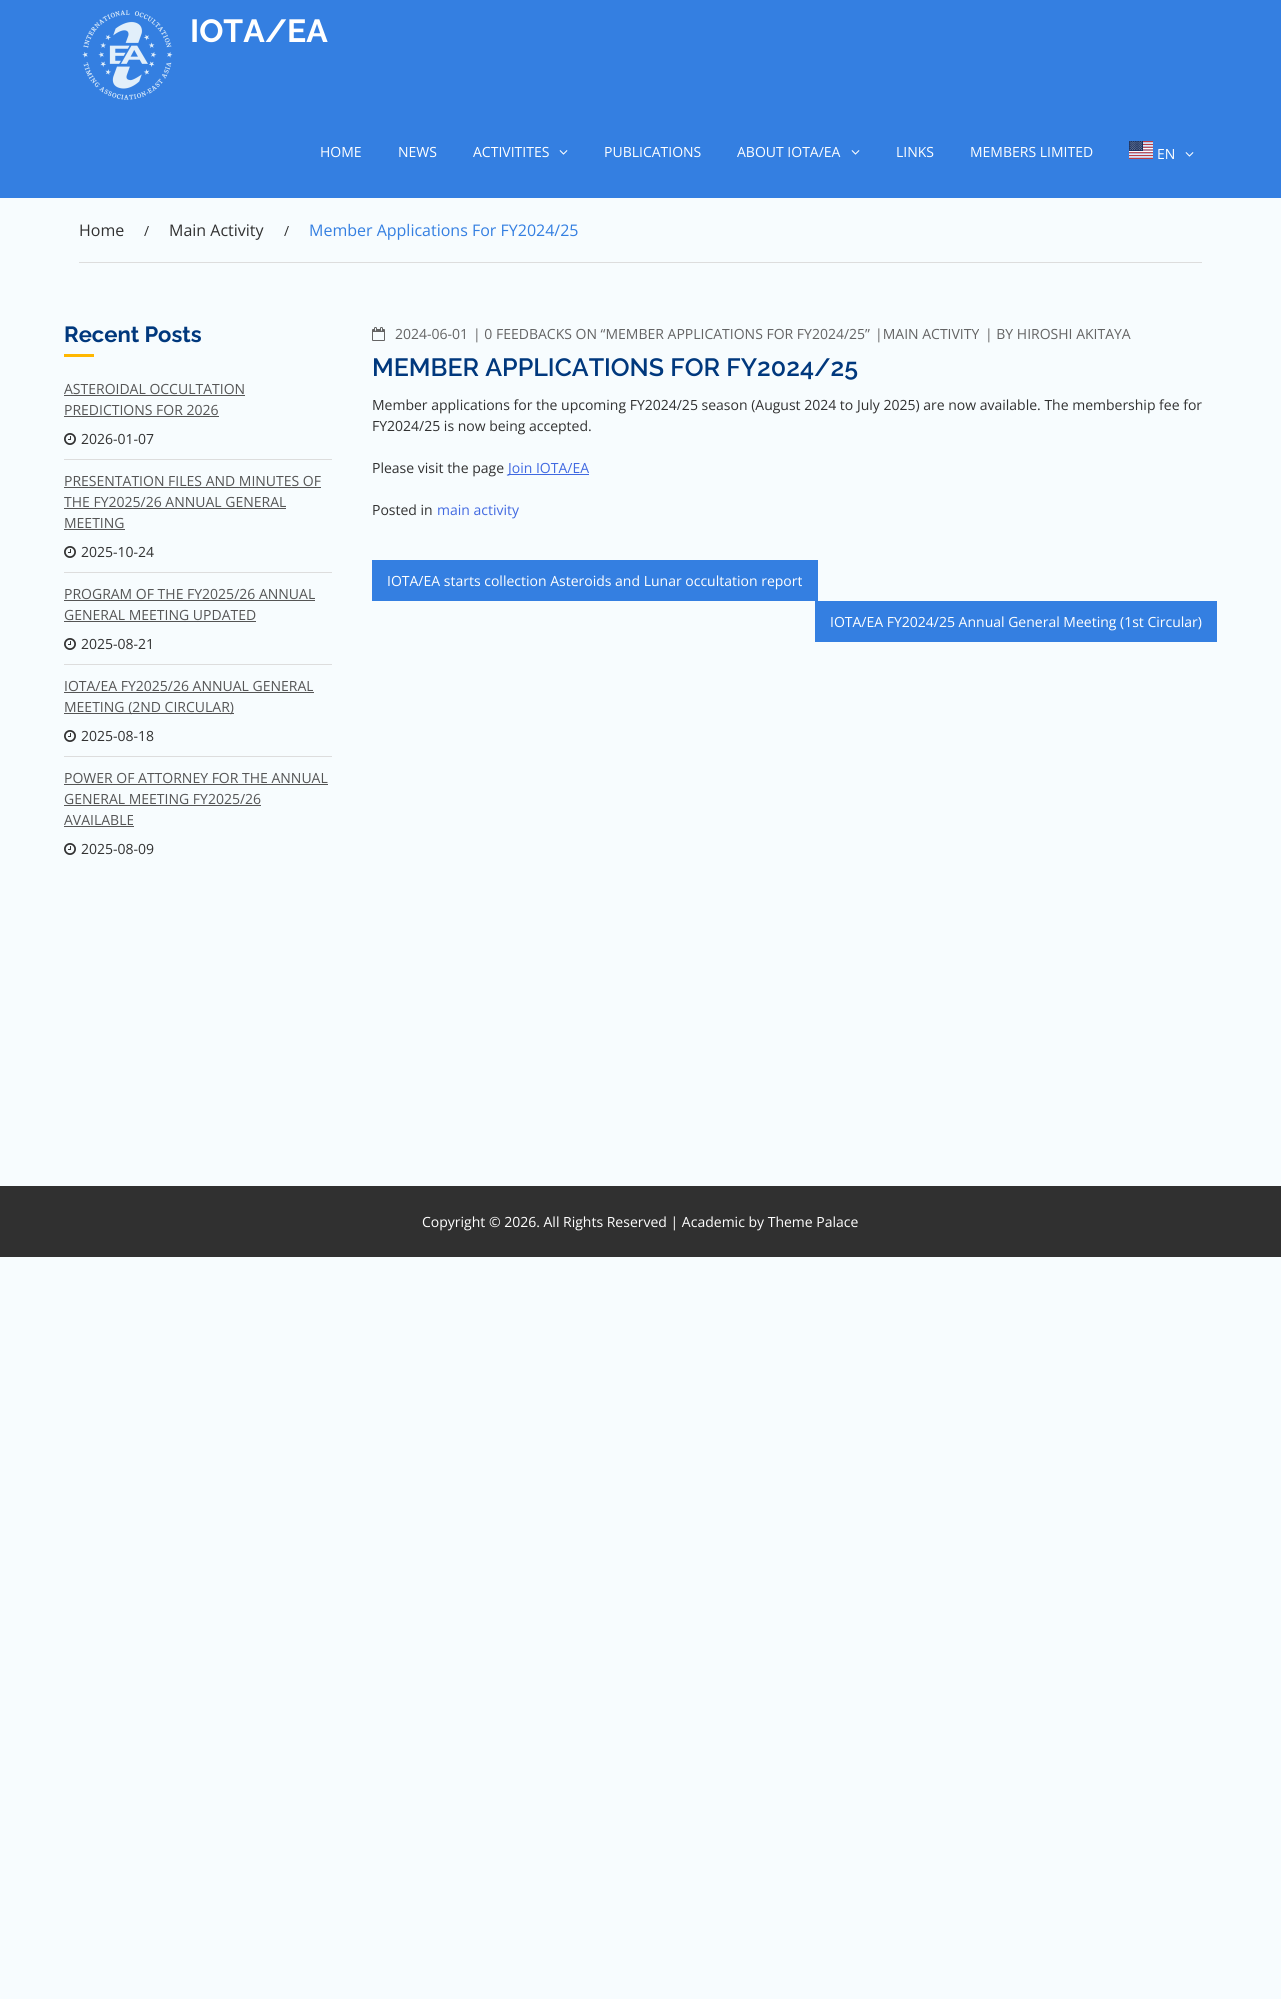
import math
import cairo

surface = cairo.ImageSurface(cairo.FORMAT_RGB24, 1281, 1999)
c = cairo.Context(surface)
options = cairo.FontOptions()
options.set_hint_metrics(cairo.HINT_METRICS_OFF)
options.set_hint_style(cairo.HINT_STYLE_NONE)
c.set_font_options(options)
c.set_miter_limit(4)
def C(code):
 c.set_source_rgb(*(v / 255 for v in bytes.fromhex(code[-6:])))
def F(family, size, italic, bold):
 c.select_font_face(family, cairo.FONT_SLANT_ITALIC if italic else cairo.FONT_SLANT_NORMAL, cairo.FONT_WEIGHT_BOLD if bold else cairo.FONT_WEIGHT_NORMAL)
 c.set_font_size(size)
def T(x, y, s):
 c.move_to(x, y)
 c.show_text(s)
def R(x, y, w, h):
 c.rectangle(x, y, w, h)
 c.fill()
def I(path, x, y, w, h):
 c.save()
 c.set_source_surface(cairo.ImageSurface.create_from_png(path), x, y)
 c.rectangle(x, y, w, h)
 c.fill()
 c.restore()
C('f7fcfe')
c.paint()
C('347fe1')
R(0,0,1281,198)
I('1.png',82,10,91,90)
F('Raleway',32,0,1)
C('ffffff')
T(190,42,'IOTA/EA')
F('Open Sans',14,0,0)
T(320,157,'HOME')
T(398,157,'NEWS')
T(473,157,'ACTIVITITES')
I('2.png',559,150,9,5)
T(604,157,'PUBLICATIONS')
T(737,157,'ABOUT IOTA/EA')
I('2.png',851,150,9,5)
T(896,157,'LINKS')
T(970,157,'MEMBERS LIMITED')
I('3.png',1129,141,24,18)
T(1157,159,'EN')
I('2.png',1185,152,9,5)
C('dddddd')
R(79,262,1123,1)
F('Open Sans',16,0,0)
C('313131')
T(79,236,'Home')
F('Open Sans',14,0,0)
T(144,236,'/')
F('Open Sans',16,0,0)
T(169,236,'Main Activity')
F('Open Sans',14,0,0)
T(284,236,'/')
F('Open Sans',16,0,0)
C('347fe1')
T(309,236,'Member Applications For FY2024/25')
F('Raleway',22,0,1)
C('00387d')
T(64,342,'Recent Posts')
C('ffb700')
R(64,354,30,3)
C('dddddd')
R(64,459,268,1)
F('Open Sans',14,0,0)
C('555555')
T(64,394,'ASTEROIDAL OCCULTATION')
R(64,395,181,1)
T(64,415,'PREDICTIONS FOR 2026')
R(64,416,155,1)
I('4.png',64,433,12,12)
C('313131')
T(81,444,'2026-01-07')
C('dddddd')
R(64,572,268,1)
C('555555')
T(64,486,'PRESENTATION FILES AND MINUTES OF')
R(64,487,257,1)
T(64,507,'THE FY2025/26 ANNUAL GENERAL')
R(64,508,222,1)
T(64,528,'MEETING')
R(64,529,61,1)
I('4.png',64,546,12,12)
C('313131')
T(81,557,'2025-10-24')
C('dddddd')
R(64,664,268,1)
C('555555')
T(64,599,'PROGRAM OF THE FY2025/26 ANNUAL')
R(64,600,251,1)
T(64,620,'GENERAL MEETING UPDATED')
R(64,621,192,1)
I('4.png',64,638,12,12)
C('313131')
T(81,649,'2025-08-21')
C('dddddd')
R(64,756,268,1)
C('555555')
T(64,691,'IOTA/EA FY2025/26 ANNUAL GENERAL')
R(64,692,250,1)
R(64,713,170,1)
T(64,712,'MEETING (2ND CIRCULAR)')
I('4.png',64,730,12,12)
C('313131')
T(81,741,'2025-08-18')
C('555555')
T(64,783,'POWER OF ATTORNEY FOR THE ANNUAL')
R(64,784,264,1)
T(64,804,'GENERAL MEETING FY2025/26')
R(64,805,197,1)
T(64,825,'AVAILABLE')
R(64,826,70,1)
I('4.png',64,843,12,12)
C('313131')
T(81,854,'2025-08-09')
I('5.png',372,327,13,14)
C('646464')
T(395,339,'2024-06-01')
T(473,339,'| 0 FEEDBACKS ON “MEMBER APPLICATIONS FOR FY2024/25”')
T(875,339,'|MAIN ACTIVITY')
T(985,339,'| BY HIROSHI AKITAYA')
F('Raleway SemiBold',25,0,0)
C('00387d')
T(372,376,'MEMBER APPLICATIONS FOR FY2024/25')
F('Open Sans',14,0,0)
C('313131')
T(372,410,'Member applications for the upcoming FY2024/25 season (August 2024 to July 2025) are now available. The membership fee for')
T(372,431,'FY2024/25 is now being accepted.')
T(372,473,'Please visit the page')
C('4169e1')
R(508,474,81,1)
T(508,473,'Join IOTA/EA')
C('313131')
T(372,515,'Posted in')
C('4169e1')
T(437,515,'main activity')
C('347fe1')
R(372,560,446,41)
C('ffffff')
T(387,586,'IOTA/EA starts collection Asteroids and Lunar occultation report')
C('347fe1')
R(815,601,402,41)
C('ffffff')
T(830,627,'IOTA/EA FY2024/25 Annual General Meeting (1st Circular)')
C('303030')
R(0,1186,1281,71)
C('ffffff')
T(422,1227,'Copyright © 2026. All Rights Reserved | Academic by Theme Palace')
surface.write_to_png('o.png')
